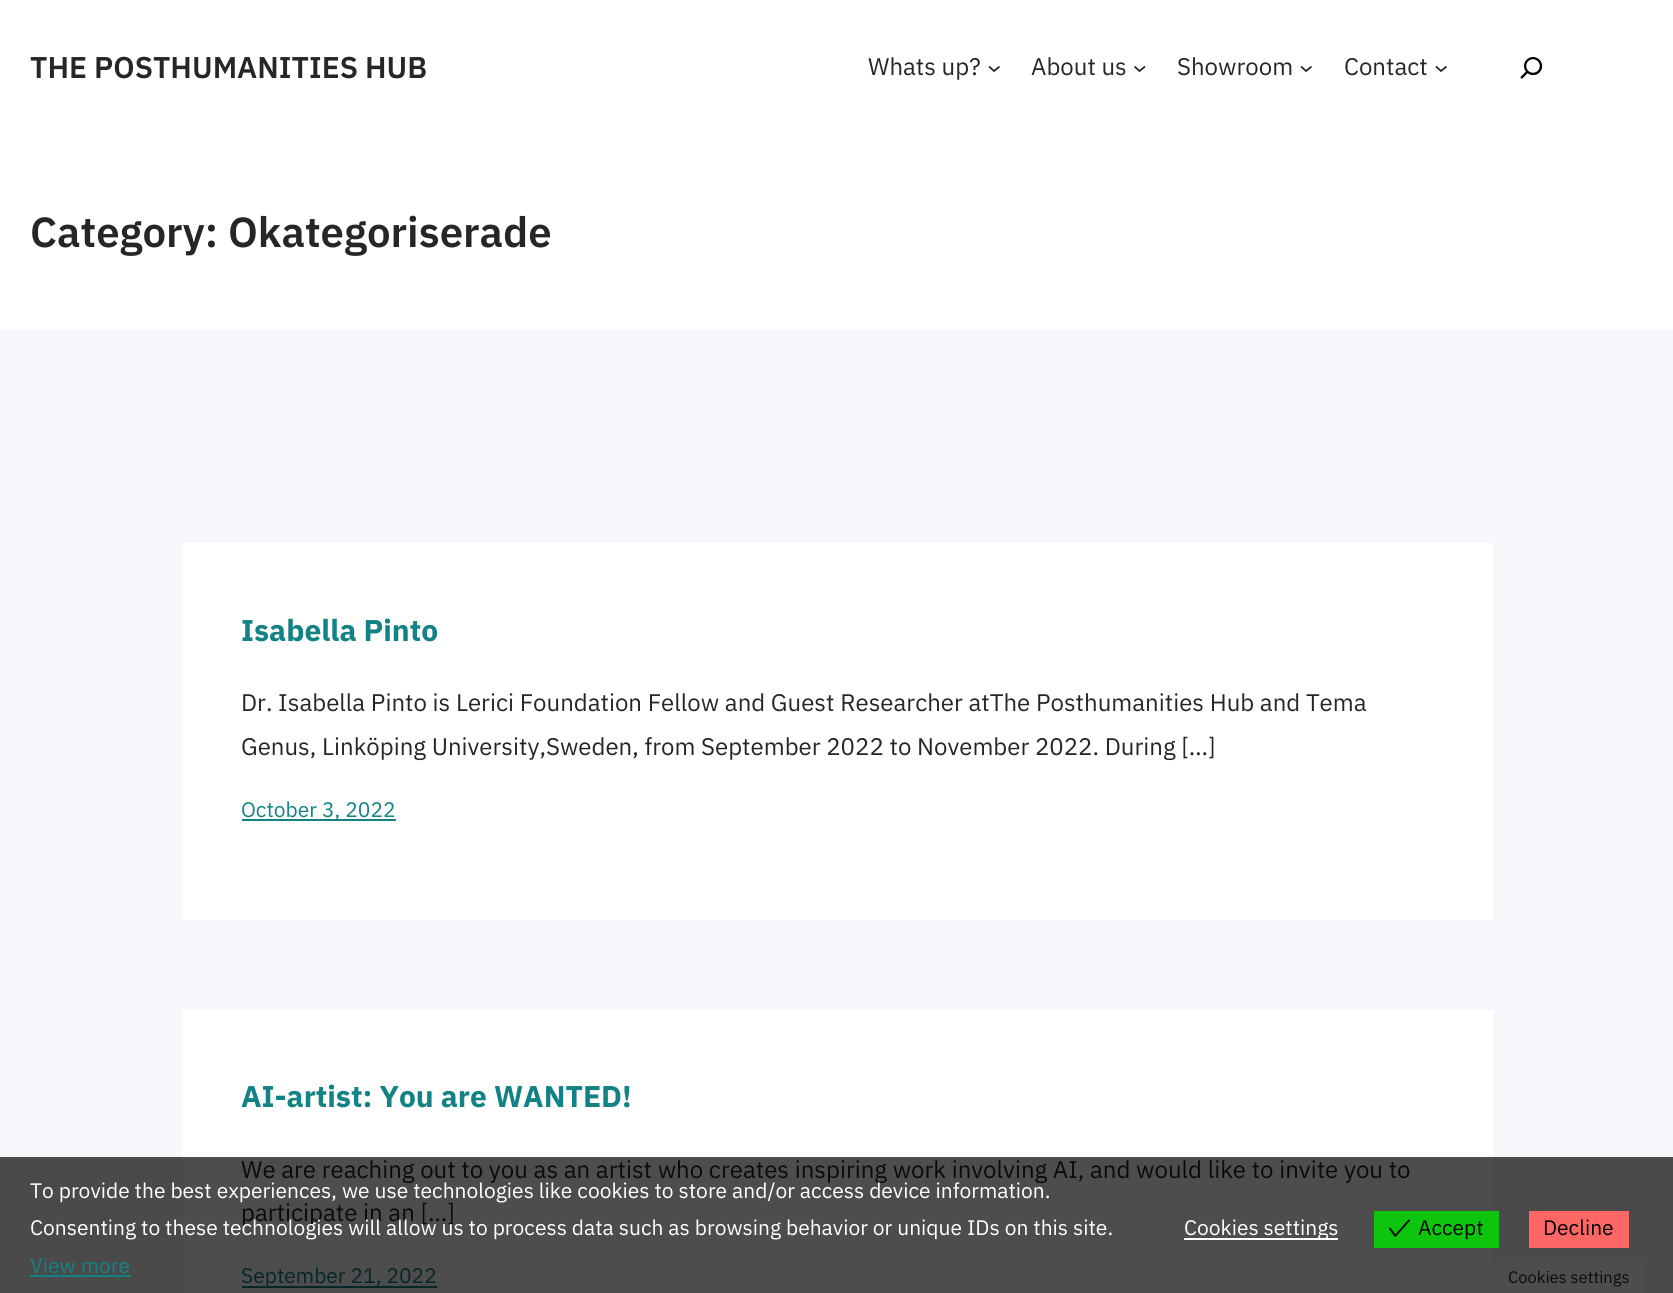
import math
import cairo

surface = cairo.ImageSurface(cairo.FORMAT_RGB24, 1673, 1293)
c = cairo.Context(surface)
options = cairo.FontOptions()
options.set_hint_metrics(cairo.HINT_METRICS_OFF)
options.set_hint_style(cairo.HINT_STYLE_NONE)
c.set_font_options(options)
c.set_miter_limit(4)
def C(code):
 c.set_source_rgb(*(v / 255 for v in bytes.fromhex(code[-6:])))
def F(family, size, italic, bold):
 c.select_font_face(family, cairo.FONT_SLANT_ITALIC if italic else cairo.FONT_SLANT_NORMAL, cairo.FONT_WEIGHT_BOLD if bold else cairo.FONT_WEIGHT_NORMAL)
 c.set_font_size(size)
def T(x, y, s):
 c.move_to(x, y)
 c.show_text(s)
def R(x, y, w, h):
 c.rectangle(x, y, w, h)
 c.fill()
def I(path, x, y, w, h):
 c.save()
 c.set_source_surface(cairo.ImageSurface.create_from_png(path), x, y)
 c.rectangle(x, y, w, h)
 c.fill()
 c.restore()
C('ffffff')
c.paint()
F('IBM Plex Sans SemiBold',30,0,0)
C('262626')
T(30,78,'THE POSTHUMANITIES HUB')
F('IBM Plex Sans',24,0,0)
T(868,75,'Whats up?')
c.new_path()
c.move_to(989,66.5)
c.line_to(994,71)
c.line_to(999.5,66.5)
c.set_line_width(1.8)
c.stroke()
T(1031,75,'About us')
c.new_path()
c.move_to(1134.5,66.5)
c.line_to(1139.5,71)
c.line_to(1145,66.5)
c.stroke()
T(1177,75,'Showroom')
c.new_path()
c.move_to(1301,66.5)
c.line_to(1306,71)
c.line_to(1311.5,66.5)
c.stroke()
T(1344,75,'Contact')
c.new_path()
c.move_to(1436,66.5)
c.line_to(1441,71)
c.line_to(1446.5,66.5)
c.stroke()
I('1.png',1520,57,23,22)
F('IBM Plex Sans SemiBold',42,0,0)
T(30,247,'Category: Okategoriserade')
C('f5f7fa')
R(0,330,1673,827)
C('4a4a4b')
R(0,1157,1673,136)
C('ffffff')
R(182,543,1311,377)
F('IBM Plex Sans',30,0,1)
C('128284')
T(241,641,'Isabella Pinto')
F('IBM Plex Sans',24,0,0)
C('262626')
T(241,711,'Dr. Isabella Pinto is Lerici Foundation Fellow and Guest Researcher atThe Posthumanities Hub and Tema')
T(241,755,'Genus, Linköping University,Sweden, from September 2022 to November 2022. During […]')
C('128284')
R(242,819,154,2)
F('IBM Plex Sans',21,0,0)
T(241,817,'October 3, 2022')
C('ffffff')
R(182,1010,1311,147)
C('4d4d4d')
R(182,1157,1311,136)
F('IBM Plex Sans',30,0,1)
C('128284')
T(241,1107,'AI-artist: You are WANTED!')
F('IBM Plex Sans',24,0,0)
C('0b0b0b')
T(241,1178,'We are reaching out to you as an artist who creates inspiring work involving AI, and would like to invite you to')
T(241,1221,'participate in an […]')
C('052728')
R(242,1286,195,2)
F('IBM Plex Sans',21,0,0)
T(241,1283,'September 21, 2022')
C('ffffff')
T(30,1198,'To provide the best experiences, we use technologies like cookies to store and/or access device information.')
T(30,1235,'Consenting to these technologies will allow us to process data such as browsing behavior or unique IDs on this site.')
C('128284')
T(30,1273,'View more')
R(30,1275,101,2)
C('ffffff')
R(1184,1238,154,2)
T(1184,1235,'Cookies settings')
C('0ec50e')
R(1374,1211,125,37)
I('2.png',1389,1219,21,18)
C('000000')
T(1418,1235,'Accept')
C('ff6666')
R(1529,1211,100,37)
C('000000')
T(1543,1235,'Decline')
C('4d4d4d')
R(1493,1263,151,30)
F('IBM Plex Sans',16.5,0,0)
C('0b0b0b')
T(1508,1283,'Cookies settings')
surface.write_to_png('o.png')
